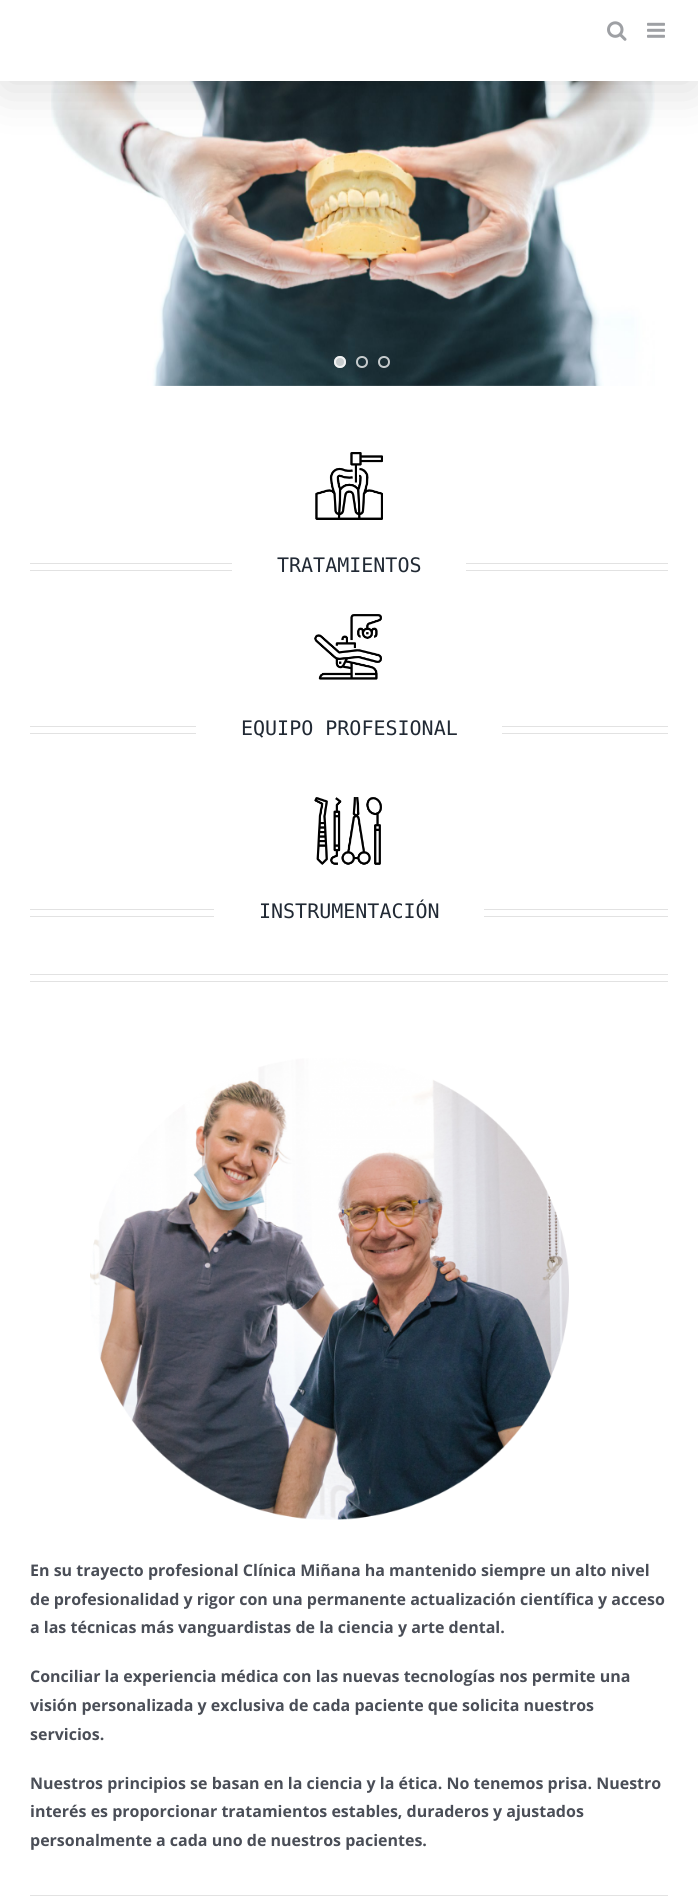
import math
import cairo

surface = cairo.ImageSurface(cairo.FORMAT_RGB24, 698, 1897)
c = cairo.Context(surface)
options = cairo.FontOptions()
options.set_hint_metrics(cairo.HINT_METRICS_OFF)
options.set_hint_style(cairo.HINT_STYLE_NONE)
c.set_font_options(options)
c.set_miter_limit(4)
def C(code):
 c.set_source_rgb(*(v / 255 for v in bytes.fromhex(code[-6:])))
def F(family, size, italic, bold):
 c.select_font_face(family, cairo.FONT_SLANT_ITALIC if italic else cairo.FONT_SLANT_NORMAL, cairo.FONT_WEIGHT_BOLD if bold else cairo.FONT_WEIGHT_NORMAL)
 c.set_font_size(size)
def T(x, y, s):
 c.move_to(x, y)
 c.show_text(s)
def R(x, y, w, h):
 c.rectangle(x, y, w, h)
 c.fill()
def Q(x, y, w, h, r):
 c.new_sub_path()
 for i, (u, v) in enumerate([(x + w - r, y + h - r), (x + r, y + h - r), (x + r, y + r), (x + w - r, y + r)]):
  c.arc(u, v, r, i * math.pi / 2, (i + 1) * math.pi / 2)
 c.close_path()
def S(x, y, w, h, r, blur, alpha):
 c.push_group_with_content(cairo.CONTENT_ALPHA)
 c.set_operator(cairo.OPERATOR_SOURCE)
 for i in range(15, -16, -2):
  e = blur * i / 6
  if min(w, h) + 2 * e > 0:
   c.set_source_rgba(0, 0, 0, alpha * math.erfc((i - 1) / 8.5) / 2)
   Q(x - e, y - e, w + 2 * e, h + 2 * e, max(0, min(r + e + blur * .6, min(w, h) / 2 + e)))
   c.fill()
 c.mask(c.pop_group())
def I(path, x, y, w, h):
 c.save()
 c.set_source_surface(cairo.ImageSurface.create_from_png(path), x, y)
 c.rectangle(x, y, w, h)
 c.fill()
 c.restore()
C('ffffff')
c.paint()
I('3.png',51,81,604,305)
C('000000')
S(2,12,694,77,0,25,.14)
C('ffffff')
R(0,0,698,81)
I('1.png',607,21,20,20)
I('2.png',647,22,18,16)
c.set_source_rgba(1,1,1,0.75)
c.arc(340,362,6,0,2 * math.pi)
c.fill()
c.arc(340,362,5,0,2 * math.pi)
c.stroke()
c.arc(362,362,5,0,2 * math.pi)
c.stroke()
c.arc(384,362,5,0,2 * math.pi)
c.stroke()
I('4.png',315,452,68,68)
C('e2e2e2')
R(30,563,202,1)
R(30,570,202,1)
F('DejaVu Sans Mono',20,0,0)
C('212934')
T(277,572,'TRATAMIENTOS')
C('e2e2e2')
R(466,563,202,1)
R(466,570,202,1)
I('5.png',314,614,68,66)
R(30,726,166,1)
R(30,733,166,1)
C('212934')
T(241,735,'EQUIPO PROFESIONAL')
C('e2e2e2')
R(502,726,166,1)
R(502,733,166,1)
I('6.png',314,797,68,68)
R(30,909,184,1)
R(30,916,184,1)
C('212934')
T(259,918,'INSTRUMENTACIÓN')
C('e2e2e2')
R(484,909,184,1)
R(484,916,184,1)
R(30,974,638,1)
R(30,981,638,1)
I('7.png',90,1058,479,462)
F('Open Sans',16,0,1)
C('4a4e57')
T(30,1576,'En su trayecto profesional Clínica Miñana ha mantenido siempre un alto nivel')
T(30,1605,'de profesionalidad y rigor con una permanente actualización científica y acceso')
T(30,1633,'a las técnicas más vanguardistas de la ciencia y arte dental.')
T(30,1682,'Conciliar la experiencia médica con las nuevas tecnologías nos permite una')
T(30,1711,'visión personalizada y exclusiva de cada paciente que solicita nuestros')
T(30,1740,'servicios.')
T(30,1789,'Nuestros principios se basan en la ciencia y la ética. No tenemos prisa. Nuestro')
T(30,1817,'interés es proporcionar tratamientos estables, duraderos y ajustados')
T(30,1846,'personalmente a cada uno de nuestros pacientes.')
C('e2e2e2')
R(30,1895,638,1)
surface.write_to_png('o.png')
